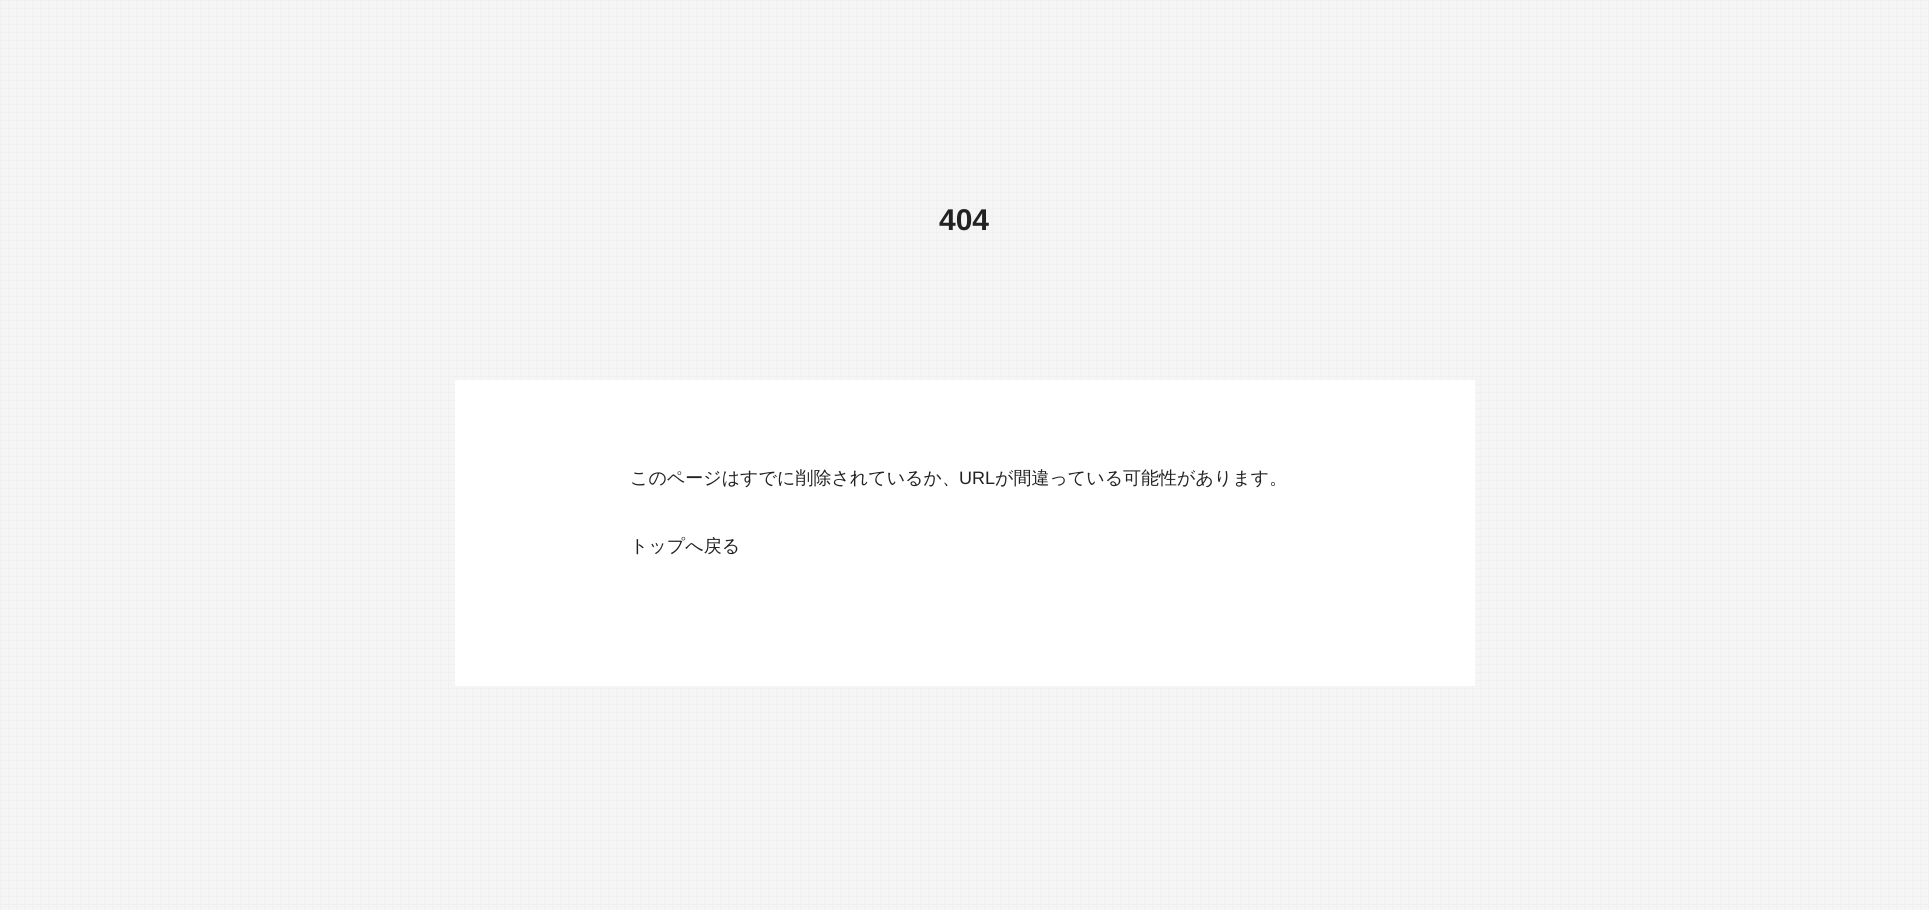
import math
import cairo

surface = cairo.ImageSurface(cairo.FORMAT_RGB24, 1929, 910)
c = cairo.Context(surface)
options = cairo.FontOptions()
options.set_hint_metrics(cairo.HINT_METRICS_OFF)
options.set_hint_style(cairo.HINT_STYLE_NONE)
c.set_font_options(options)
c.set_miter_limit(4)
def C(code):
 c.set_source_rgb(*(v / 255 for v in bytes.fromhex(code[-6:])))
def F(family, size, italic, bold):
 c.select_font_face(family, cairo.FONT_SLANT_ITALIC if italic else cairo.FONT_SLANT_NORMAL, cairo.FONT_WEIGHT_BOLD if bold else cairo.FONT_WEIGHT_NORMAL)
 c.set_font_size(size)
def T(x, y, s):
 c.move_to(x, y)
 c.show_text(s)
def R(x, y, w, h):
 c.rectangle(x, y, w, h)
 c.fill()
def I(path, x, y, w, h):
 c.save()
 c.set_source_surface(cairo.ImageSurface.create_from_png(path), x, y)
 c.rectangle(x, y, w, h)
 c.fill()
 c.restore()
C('ffffff')
c.paint()
I('1.png',0,0,1929,910)
F('Liberation Sans',30,0,1)
C('222222')
T(939,230,'404')
C('ffffff')
R(455,380,1020,306)
F('WenQuanYi Zen Hei Medium',18,0,0)
C('222222')
T(630,484,'このページはすでに削除されているか、')
F('Liberation Sans',18,0,0)
T(959,484,'URL')
F('WenQuanYi Zen Hei Medium',18,0,0)
T(995,484,'が間違っている可能性があります。')
T(630,552,'トップへ戻る')
surface.write_to_png('o.png')
